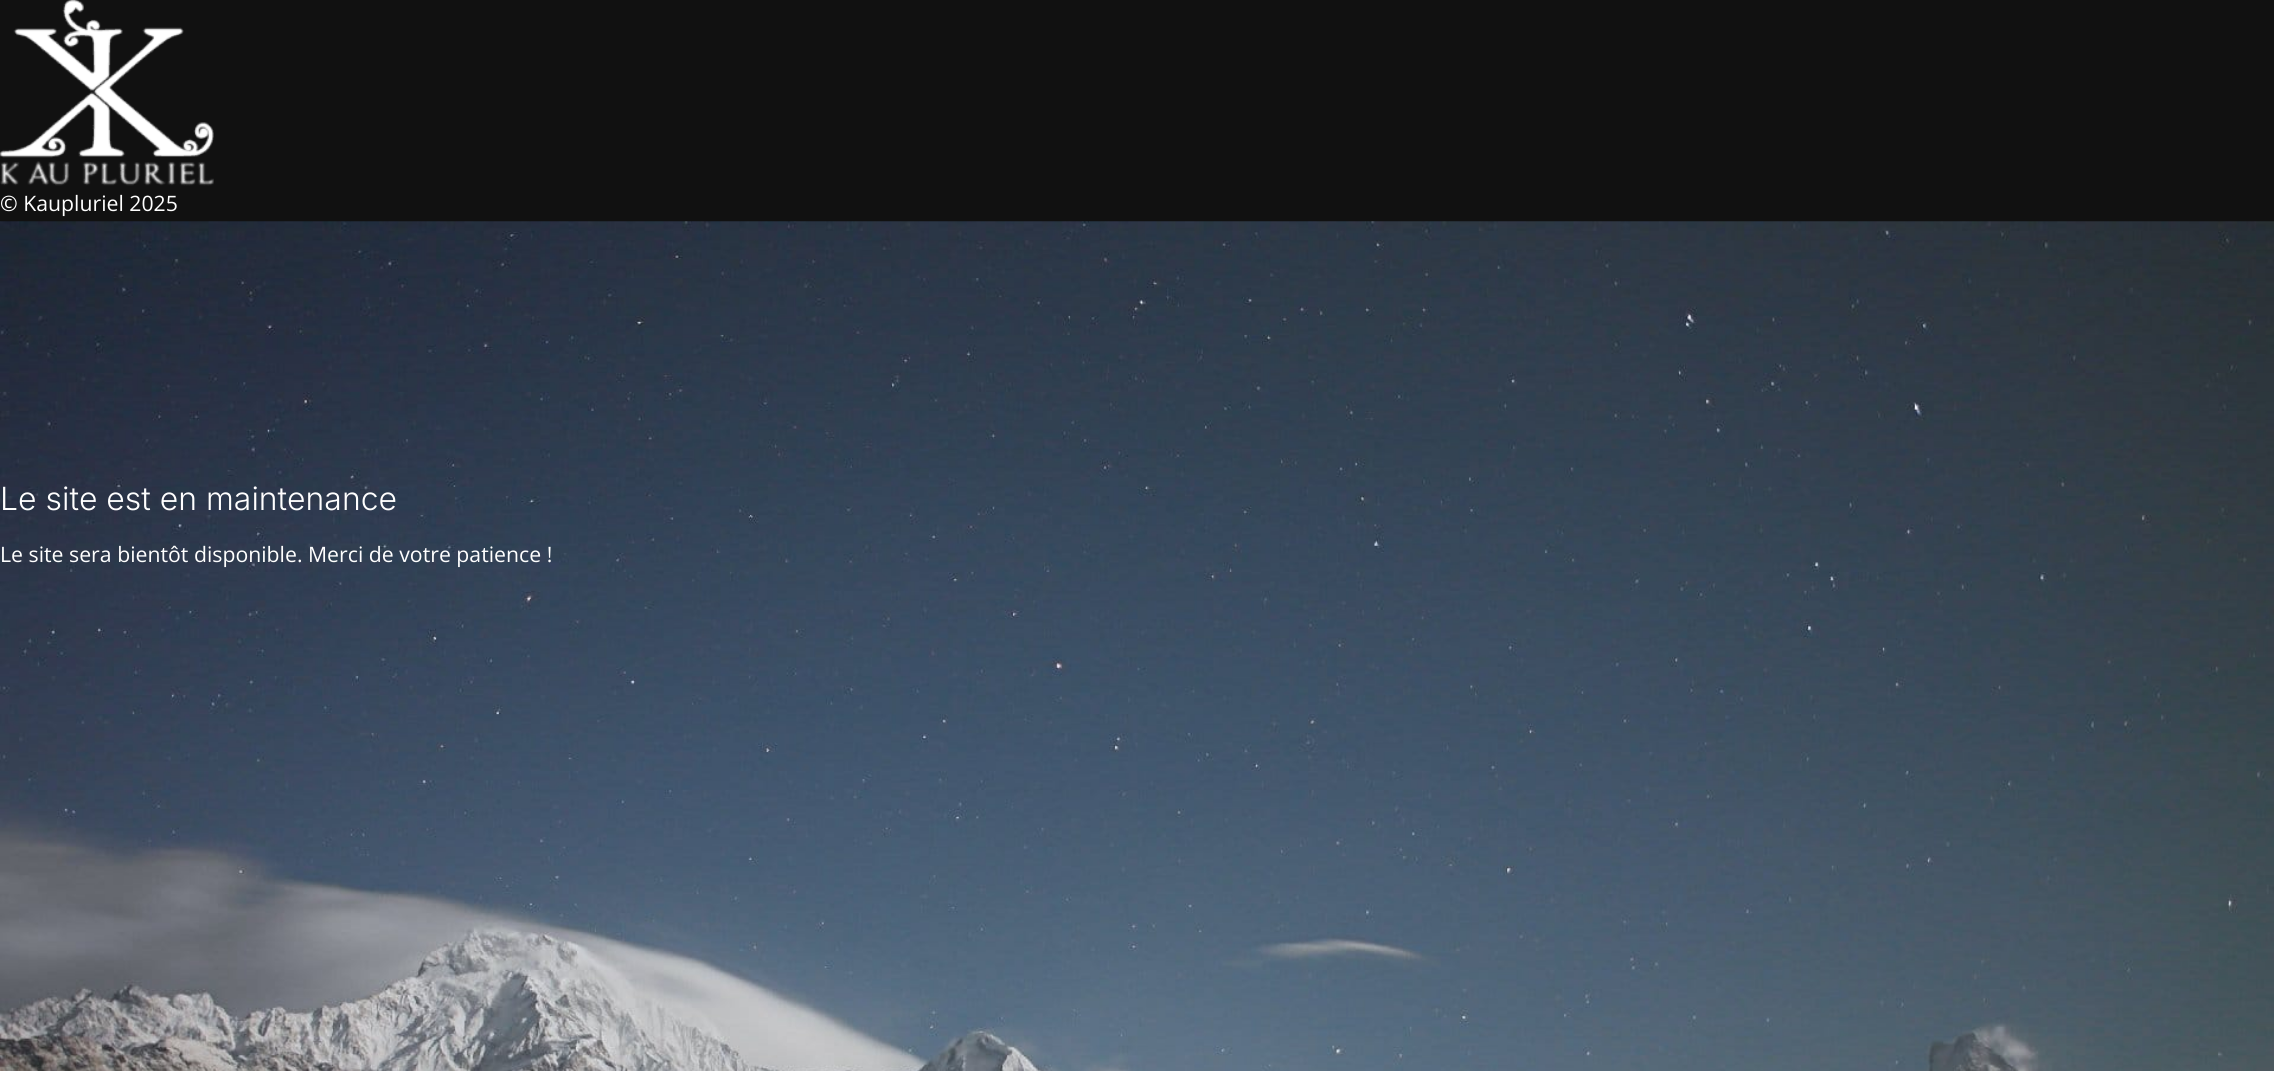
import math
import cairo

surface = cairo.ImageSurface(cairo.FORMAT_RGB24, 2274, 1071)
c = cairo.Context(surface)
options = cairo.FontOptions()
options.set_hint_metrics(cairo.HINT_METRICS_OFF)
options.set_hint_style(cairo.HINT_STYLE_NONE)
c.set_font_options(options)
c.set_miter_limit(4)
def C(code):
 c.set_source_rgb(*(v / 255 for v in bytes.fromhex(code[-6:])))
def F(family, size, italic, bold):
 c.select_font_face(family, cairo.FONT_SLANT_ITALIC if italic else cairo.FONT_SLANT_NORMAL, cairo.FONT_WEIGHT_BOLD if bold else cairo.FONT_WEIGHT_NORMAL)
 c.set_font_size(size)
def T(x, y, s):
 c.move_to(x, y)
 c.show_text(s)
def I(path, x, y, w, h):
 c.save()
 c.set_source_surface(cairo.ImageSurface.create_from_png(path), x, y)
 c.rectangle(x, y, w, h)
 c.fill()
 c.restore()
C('111111')
c.paint()
F('Open Sans',21.25,0,0)
C('ffffff')
T(0,211,'© Kaupluriel 2025')
I('1.png',0,221,2274,850)
I('2.png',0,0,214,186)
F('Inter Light',31.9,0,0)
T(0,510,'Le site est en maintenance')
F('Open Sans',21.25,0,0)
T(0,562,'Le site sera bientôt disponible. Merci de votre patience !')
surface.write_to_png('o.png')
